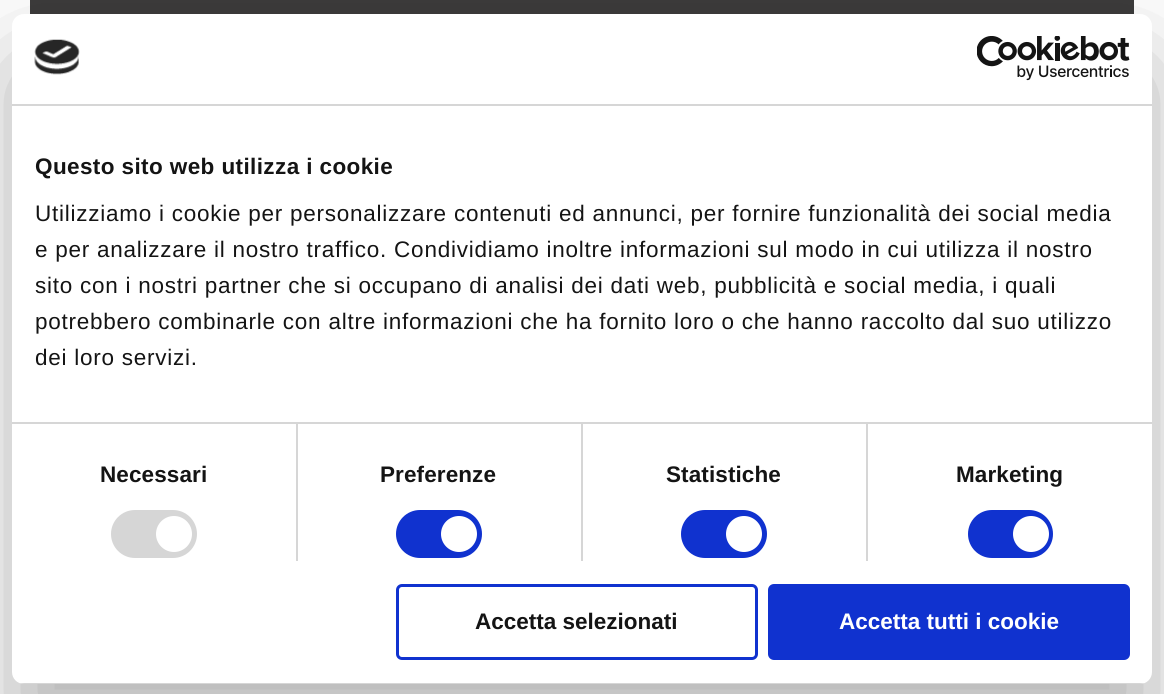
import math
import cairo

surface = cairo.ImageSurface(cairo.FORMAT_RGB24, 1164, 694)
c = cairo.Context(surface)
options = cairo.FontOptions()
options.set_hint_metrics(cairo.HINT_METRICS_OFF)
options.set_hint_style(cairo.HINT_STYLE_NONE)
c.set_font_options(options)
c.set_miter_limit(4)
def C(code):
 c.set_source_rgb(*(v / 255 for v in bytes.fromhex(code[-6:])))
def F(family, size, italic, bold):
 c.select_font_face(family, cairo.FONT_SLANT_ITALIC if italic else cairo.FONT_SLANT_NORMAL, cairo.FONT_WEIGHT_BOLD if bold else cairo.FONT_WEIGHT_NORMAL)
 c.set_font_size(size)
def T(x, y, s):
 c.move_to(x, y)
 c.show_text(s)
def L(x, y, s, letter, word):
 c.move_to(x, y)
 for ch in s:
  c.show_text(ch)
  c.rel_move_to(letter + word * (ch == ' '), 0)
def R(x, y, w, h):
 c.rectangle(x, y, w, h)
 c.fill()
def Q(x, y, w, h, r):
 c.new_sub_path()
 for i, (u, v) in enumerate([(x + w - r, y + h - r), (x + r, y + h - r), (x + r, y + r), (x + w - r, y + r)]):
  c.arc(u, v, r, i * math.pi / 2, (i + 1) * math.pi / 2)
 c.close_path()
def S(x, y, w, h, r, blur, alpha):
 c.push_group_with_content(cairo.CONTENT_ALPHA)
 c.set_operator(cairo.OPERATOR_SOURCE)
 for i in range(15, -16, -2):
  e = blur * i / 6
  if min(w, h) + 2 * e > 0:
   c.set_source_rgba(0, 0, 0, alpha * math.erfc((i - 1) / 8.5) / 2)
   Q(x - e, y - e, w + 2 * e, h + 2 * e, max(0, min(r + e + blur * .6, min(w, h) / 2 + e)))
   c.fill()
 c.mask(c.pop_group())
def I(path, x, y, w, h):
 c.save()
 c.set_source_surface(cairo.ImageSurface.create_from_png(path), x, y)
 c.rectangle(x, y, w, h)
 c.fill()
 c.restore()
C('ffffff')
c.paint()
C('3d3c3c')
R(30,0,1104,14)
C('000000')
S(12,62,1140,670,12,51,.3)
C('ffffff')
Q(12,14,1140,670,12)
c.fill()
C('d6d6d6')
R(12,104,1140,2)
I('1.png',34,39,46,36)
I('2.png',977,36,153,45)
R(296,423,2,138)
R(581,423,2,138)
R(866,423,2,138)
R(12,422,1140,2)
F('Liberation Sans',22.5,0,1)
C('141414')
L(35,174,'Questo sito web utilizza i cookie',.4,0)
F('Liberation Sans',22.5,0,0)
L(35,221,'Utilizziamo i cookie per personalizzare contenuti ed annunci, per fornire funzionalità dei social media',.75,0)
L(35,257,'e per analizzare il nostro traffico. Condividiamo inoltre informazioni sul modo in cui utilizza il nostro',.75,0)
L(35,293,'sito con i nostri partner che si occupano di analisi dei dati web, pubblicità e social media, i quali',.75,0)
L(35,329,'potrebbero combinarle con altre informazioni che ha fornito loro o che hanno raccolto dal suo utilizzo',.75,0)
L(35,365,'dei loro servizi.',.75,0)
F('Liberation Sans',22.5,0,1)
L(100,482,'Necessari',.1,0)
C('d6d6d6')
Q(111,510,86,48,24)
c.fill()
C('ffffff')
c.arc(174,534,18,0,2 * math.pi)
c.fill()
C('141414')
L(380,482,'Preferenze',.1,0)
C('1032cf')
Q(396,510,86,48,24)
c.fill()
C('ffffff')
c.arc(459,534,18,0,2 * math.pi)
c.fill()
C('141414')
L(666,482,'Statistiche',.1,0)
C('1032cf')
Q(681,510,86,48,24)
c.fill()
C('ffffff')
c.arc(744,534,18,0,2 * math.pi)
c.fill()
C('141414')
L(956,482,'Marketing',.1,0)
C('1032cf')
Q(968,510,85,48,24)
c.fill()
C('ffffff')
c.arc(1031,534,18,0,2 * math.pi)
c.fill()
c.save()
Q(12,14,1140,670,12)
c.clip()
C('d6d6d6')
R(12,683,1140,1)
c.restore()
Q(397.5,585.5,359,73,4.5)
C('1032cf')
c.set_line_width(3)
c.stroke()
C('141414')
T(475,629,'Accetta selezionati')
C('1032cf')
Q(769.5,585.5,359,73,4.5)
c.fill_preserve()
c.stroke()
C('ffffff')
T(839,629,'Accetta tutti i cookie')
surface.write_to_png('o.png')
